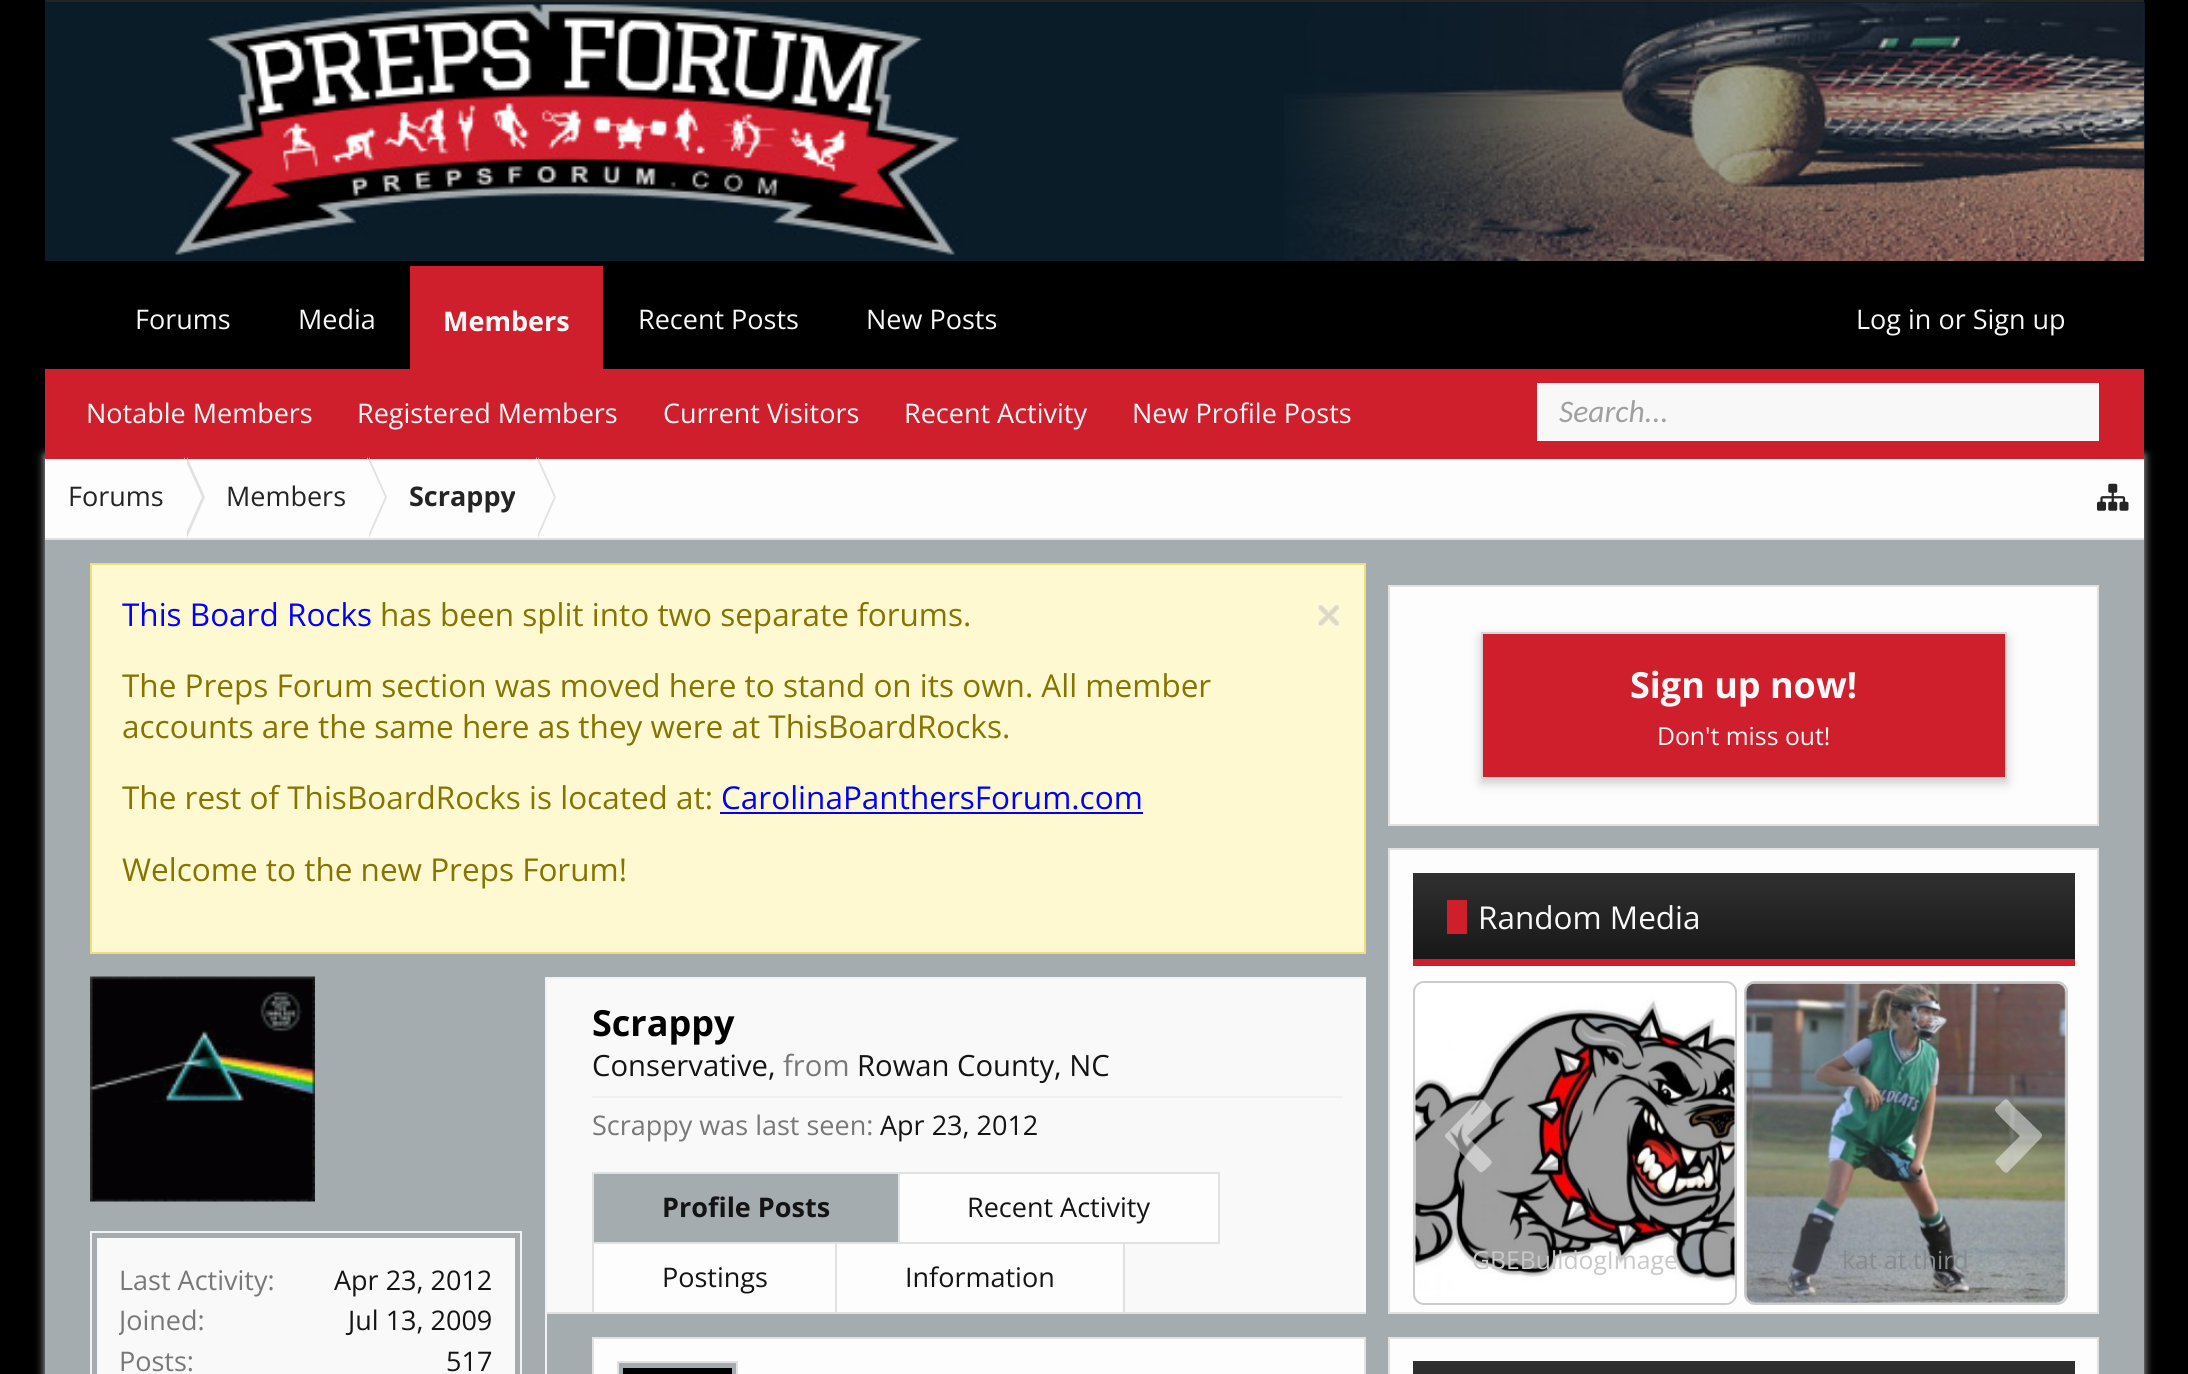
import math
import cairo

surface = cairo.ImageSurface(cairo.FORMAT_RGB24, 2188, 1374)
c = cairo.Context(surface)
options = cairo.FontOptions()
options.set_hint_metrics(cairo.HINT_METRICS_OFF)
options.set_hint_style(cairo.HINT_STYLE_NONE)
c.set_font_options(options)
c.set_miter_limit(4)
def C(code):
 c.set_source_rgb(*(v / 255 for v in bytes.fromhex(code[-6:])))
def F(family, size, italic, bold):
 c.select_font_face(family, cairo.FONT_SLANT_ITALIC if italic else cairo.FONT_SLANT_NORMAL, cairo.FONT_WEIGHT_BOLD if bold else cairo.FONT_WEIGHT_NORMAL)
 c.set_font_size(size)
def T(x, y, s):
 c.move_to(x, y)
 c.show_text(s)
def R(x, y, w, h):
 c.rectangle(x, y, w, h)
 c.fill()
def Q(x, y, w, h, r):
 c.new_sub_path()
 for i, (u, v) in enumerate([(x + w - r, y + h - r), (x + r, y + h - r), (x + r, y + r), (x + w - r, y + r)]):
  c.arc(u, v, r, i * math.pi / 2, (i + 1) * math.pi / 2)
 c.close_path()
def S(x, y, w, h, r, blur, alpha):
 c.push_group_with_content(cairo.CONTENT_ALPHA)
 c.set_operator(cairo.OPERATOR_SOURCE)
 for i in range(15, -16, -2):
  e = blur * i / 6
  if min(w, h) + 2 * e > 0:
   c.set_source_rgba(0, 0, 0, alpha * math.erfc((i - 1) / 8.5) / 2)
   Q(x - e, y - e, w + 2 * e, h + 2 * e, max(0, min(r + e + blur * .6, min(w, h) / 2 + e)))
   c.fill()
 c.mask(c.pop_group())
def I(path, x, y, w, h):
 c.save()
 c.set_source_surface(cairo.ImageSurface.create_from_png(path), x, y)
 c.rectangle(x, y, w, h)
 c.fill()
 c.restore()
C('000000')
c.paint()
C('242424')
R(45,0,2099,2)
C('0a1c28')
R(45,2,2100,259)
I('1.png',170,3,793,255)
I('2.png',1284,2,860,259)
F('Open Sans',27,0,0)
C('f8f8f8')
T(135,329,'Forums')
T(298,329,'Media')
T(638,329,'Recent Posts')
T(866,329,'New Posts')
C('cf1f2c')
R(410,266,193,103)
F('Open Sans',27,0,1)
C('f8f8f8')
T(443,331,'Members')
C('c2c2c2')
S(45,455,2099,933,0,4.5,1)
C('cf1f2c')
R(45,369,2099,90)
F('Open Sans',27,0,0)
C('f8f8f8')
T(86,423,'Notable Members')
T(357,423,'Registered Members')
T(663,423,'Current Visitors')
T(904,423,'Recent Activity')
T(1132,423,'New Profile Posts')
T(1856,329,'Log in or Sign up')
R(1537,383,562,58)
F('Carlito',31.5,1,0)
C('a0a0a0')
T(1559,422,'Search...')
C('a5acaf')
R(45,540,2099,834)
C('fdfdfd')
R(45,459,2099,79)
C('e1e1e1')
R(45,538,2099,2)
F('Open Sans',27,0,0)
C('242424')
T(68,506,'Forums')
C('e1e1e1')
c.new_path()
c.move_to(187,538)
c.line_to(187,457)
c.line_to(205,497)
c.close_path()
c.fill()
C('fdfdfd')
c.new_path()
c.move_to(184,538)
c.line_to(184,457)
c.line_to(202,497)
c.close_path()
c.fill()
C('242424')
T(226,506,'Members')
C('e1e1e1')
c.new_path()
c.move_to(369,538)
c.line_to(369,457)
c.line_to(387,497)
c.close_path()
c.fill()
C('fdfdfd')
c.new_path()
c.move_to(367,538)
c.line_to(367,457)
c.line_to(385,497)
c.close_path()
c.fill()
c.save()
c.rectangle(410,457,105,81)
c.clip()
F('Open Sans',27,0,1)
C('242424')
T(409,506,'Scrappy')
c.restore()
C('e1e1e1')
c.new_path()
c.move_to(538,538)
c.line_to(538,457)
c.line_to(556,497)
c.close_path()
c.fill()
C('fdfdfd')
c.new_path()
c.move_to(536,538)
c.line_to(536,457)
c.line_to(554,497)
c.close_path()
c.fill()
I('3.png',2097,483,32,28)
C('fff9d2')
c.rectangle(91,564,1274,389)
c.fill_preserve()
C('edde80')
c.stroke()
F('Open Sans',31.5,0,0)
C('0000ff')
T(122,626,'This Board Rocks')
C('877400')
T(380,626,'has been split into two separate forums.')
T(122,697,'The Preps Forum section was moved here to stand on its own. All member')
T(122,738,'accounts are the same here as they were at ThisBoardRocks.')
T(122,809,'The rest of ThisBoardRocks is located at:')
C('0000ff')
T(721,809,'CarolinaPanthersForum.com')
R(720,812,423,2)
C('877400')
T(122,881,'Welcome to the new Preps Forum!')
I('4.png',1316,602,26,26)
C('f1f1f1')
R(545,977,2,397)
R(547,977,819,2)
C('f9f9f9')
R(547,979,819,333)
F('Open Sans',36,0,1)
C('000000')
T(592,1036,'Scrappy')
F('Open Sans',29.25,0,0)
C('141414')
T(592,1076,'Conservative,')
C('787878')
T(783,1076,'from')
C('141414')
T(857,1076,'Rowan County, NC')
C('f1f1f1')
R(592,1096,751,2)
F('Open Sans',27,0,0)
C('787878')
T(592,1135,'Scrappy was last seen:')
C('141414')
T(880,1135,'Apr 23, 2012')
C('e1e1e1')
R(547,1312,819,2)
C('a5acaf')
R(594,1174,304,68)
C('e1e1e1')
R(592,1172,308,2)
R(592,1172,2,72)
F('Open Sans',27,0,1)
C('141414')
T(662,1217,'Profile Posts')
C('fdfdfd')
c.rectangle(899,1173,320,70)
c.fill_preserve()
C('e1e1e1')
c.stroke()
F('Open Sans',27,0,0)
C('141414')
T(967,1217,'Recent Activity')
C('fdfdfd')
c.rectangle(593,1243,243,70)
c.fill_preserve()
C('e1e1e1')
c.stroke()
C('141414')
T(662,1287,'Postings')
C('fdfdfd')
c.rectangle(836,1243,288,70)
c.fill_preserve()
C('e1e1e1')
c.stroke()
C('141414')
T(905,1287,'Information')
C('fdfdfd')
c.rectangle(593,1338,772,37)
c.fill_preserve()
C('e1e1e1')
c.stroke()
C('a5acaf')
c.rectangle(618,1362,119,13)
c.fill_preserve()
C('e1e1e1')
c.stroke()
C('000000')
R(623,1368,109,6)
I('5.png',90,976,225,226)
c.rectangle(91,1232,430,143)
C('f1f1f1')
c.stroke()
C('f9f9f9')
R(97,1238,418,136)
C('787878')
T(119,1290,'Last Activity:')
C('141414')
T(334,1290,'Apr 23, 2012')
c.save()
c.rectangle(119,1301,374,40)
c.clip()
C('787878')
T(119,1330,'Joined:')
c.restore()
T(348,1330,'Jul 13, 2009')
C('787878')
T(119,1371,'Posts:')
C('141414')
T(446,1371,'517')
C('fdfdfd')
c.rectangle(1389,586,709,239)
c.fill_preserve()
C('e1e1e1')
c.stroke()
C('000000')
S(1481,637,526,146,0,5.5,.2)
C('cf1f2c')
c.rectangle(1482,633,524,145)
c.fill_preserve()
C('d7d7d7')
c.stroke()
F('Open Sans',36,0,1)
C('f8f8f8')
T(1630,698,'Sign up now!')
F('Open Sans',24.75,0,0)
T(1657,745,'Don\'t miss out!')
C('fdfdfd')
c.rectangle(1389,849,709,464)
c.fill_preserve()
C('e1e1e1')
c.stroke()
gradient = cairo.LinearGradient(1744,873,1744,959)
gradient.add_color_stop_rgba(0,0.188,0.188,0.188,1)
gradient.add_color_stop_rgba(1,0.094,0.094,0.094,1)
c.set_source(gradient)
R(1413,873,662,86)
C('cf1f2c')
R(1413,959,662,7)
R(1447,900,20,34)
F('Open Sans',31.5,0,0)
C('f8f8f8')
T(1478,929,'Random Media')
Q(1414,982,322,322,10)
C('cbcbcb')
c.stroke()
I('6.png',1415,983,320,320)
c.set_source_rgba(0.976,0.976,0.976,0.5)
c.new_path()
c.move_to(1491,1112)
c.line_to(1467,1136)
c.line_to(1487,1156)
c.curve_to(1494,1163,1493,1162,1486,1169)
c.curve_to(1480,1175,1480,1172,1474,1166)
c.line_to(1445,1137)
c.line_to(1445,1135)
c.line_to(1479,1100)
c.curve_to(1482,1098,1484,1101,1486,1103)
c.line_to(1491,1109)
c.curve_to(1492,1110,1492,1111,1491,1112)
c.close_path()
c.fill()
Q(1745,982,322,322,10)
C('cbcbcb')
c.stroke()
I('7.png',1745,982,321,321)
c.set_source_rgba(0.976,0.976,0.976,0.5)
c.new_path()
c.move_to(2041,1138)
c.line_to(2008,1172)
c.curve_to(2005,1175,2000,1168,1999,1166)
c.curve_to(1997,1165,1994,1162,1996,1160)
c.line_to(2020,1136)
c.curve_to(2017,1133,1995,1113,1995,1110)
c.curve_to(1995,1107,1998,1106,2000,1104)
c.curve_to(2007,1097,2006,1098,2013,1106)
c.line_to(2036,1128)
c.curve_to(2036,1129,2043,1133,2042,1136)
c.close_path()
c.fill()
F('Open Sans',24.75,0,0)
C('c8c8c8')
T(1472,1269,'GBEBulldogImage')
C('858a8d')
T(1842,1269,'kat at third')
C('fdfdfd')
c.rectangle(1389,1338,709,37)
c.fill_preserve()
C('e1e1e1')
c.stroke()
gradient = cairo.LinearGradient(1744,1361,1744,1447)
gradient.add_color_stop_rgba(0,0.188,0.188,0.188,1)
gradient.add_color_stop_rgba(1,0.094,0.094,0.094,1)
c.set_source(gradient)
R(1413,1361,662,13)
surface.write_to_png('o.png')
